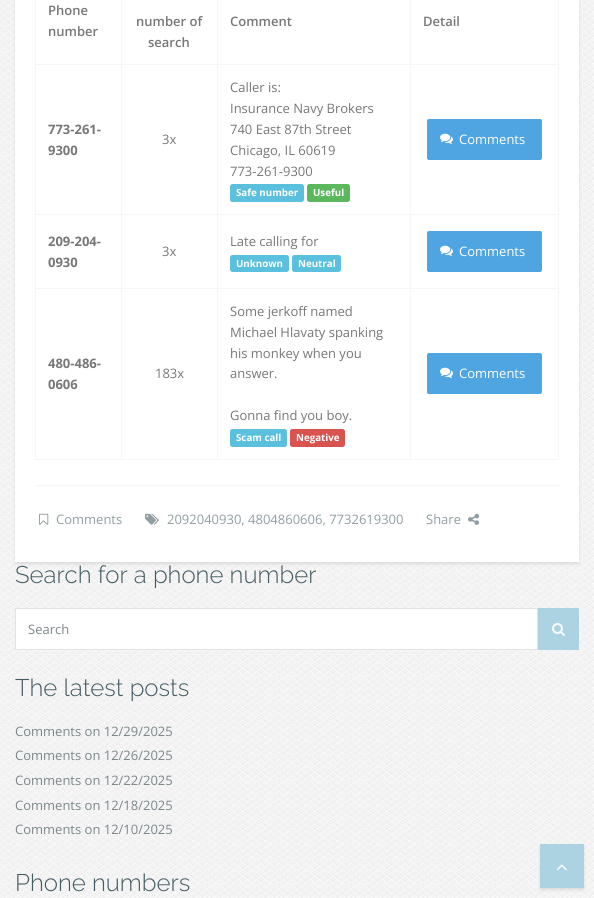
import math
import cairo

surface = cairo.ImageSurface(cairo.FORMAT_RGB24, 594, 898)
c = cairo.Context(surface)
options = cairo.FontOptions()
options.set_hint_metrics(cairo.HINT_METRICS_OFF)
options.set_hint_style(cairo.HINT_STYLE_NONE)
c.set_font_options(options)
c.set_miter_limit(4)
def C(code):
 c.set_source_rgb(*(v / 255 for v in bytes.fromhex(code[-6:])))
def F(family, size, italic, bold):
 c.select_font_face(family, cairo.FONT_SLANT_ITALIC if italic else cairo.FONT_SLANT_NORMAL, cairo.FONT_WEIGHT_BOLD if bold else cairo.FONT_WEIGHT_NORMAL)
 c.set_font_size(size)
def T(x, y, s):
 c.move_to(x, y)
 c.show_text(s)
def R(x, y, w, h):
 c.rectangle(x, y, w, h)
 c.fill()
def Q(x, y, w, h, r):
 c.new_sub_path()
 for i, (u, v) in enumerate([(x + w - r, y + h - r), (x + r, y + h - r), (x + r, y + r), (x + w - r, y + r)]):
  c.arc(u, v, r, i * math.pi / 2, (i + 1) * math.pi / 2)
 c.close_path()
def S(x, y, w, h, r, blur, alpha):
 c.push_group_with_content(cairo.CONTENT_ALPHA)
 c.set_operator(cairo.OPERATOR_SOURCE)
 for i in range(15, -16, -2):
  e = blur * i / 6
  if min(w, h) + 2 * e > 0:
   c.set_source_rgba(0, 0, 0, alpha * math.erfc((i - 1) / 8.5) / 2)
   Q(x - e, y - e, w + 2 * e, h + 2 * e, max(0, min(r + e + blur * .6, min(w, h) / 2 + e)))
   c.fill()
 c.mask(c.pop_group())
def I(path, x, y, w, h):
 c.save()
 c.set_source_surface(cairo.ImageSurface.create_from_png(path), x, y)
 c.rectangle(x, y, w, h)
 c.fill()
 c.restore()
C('ffffff')
c.paint()
I('1.png',0,0,594,898)
C('000000')
S(15,-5,564,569,0,1.5,.1)
C('ffffff')
R(15,0,564,562)
F('Open Sans SemiBold',13,0,0)
C('777777')
T(48,15,'Phone')
T(48,36,'number')
C('f6f6f6')
R(410,64,149,1)
R(410,214,149,1)
R(410,288,149,1)
R(558,288,1,172)
R(410,459,149,1)
R(410,288,1,172)
R(217,288,194,1)
R(410,214,1,75)
R(217,214,194,1)
R(410,64,1,151)
R(217,64,194,1)
R(217,459,194,1)
R(217,288,1,172)
R(121,288,97,1)
R(217,214,1,75)
R(121,214,97,1)
R(217,64,1,151)
R(121,64,97,1)
R(121,459,97,1)
R(121,288,1,172)
R(35,288,87,1)
R(121,214,1,75)
R(35,214,87,1)
R(121,64,1,151)
R(35,64,87,1)
R(121,0,1,65)
C('777777')
T(136,26,'number of')
T(148,47,'search')
C('f6f6f6')
R(217,0,1,65)
C('777777')
T(230,26,'Comment')
C('f6f6f6')
R(410,0,1,65)
C('777777')
T(423,26,'Detail')
C('f6f6f6')
R(35,459,87,1)
R(35,288,1,172)
R(35,214,1,75)
R(35,0,1,215)
F('Open Sans',13,0,1)
C('777777')
T(48,134,'773-261-')
T(48,155,'9300')
F('Open Sans',13,0,0)
T(162,144,'3x')
T(230,92,'Caller is:')
T(230,113,'Insurance Navy Brokers')
T(230,134,'740 East 87th Street')
T(230,155,'Chicago, IL 60619')
T(230,176,'773-261-9300')
C('5bc0de')
Q(230,184,74,18,2.5)
c.fill()
F('Open Sans',9.75,0,1)
C('ffffff')
T(236,196,'Safe number')
C('5cb85c')
Q(307,184,43,18,2.5)
c.fill()
C('ffffff')
T(313,196,'Useful')
C('f6f6f6')
R(558,214,1,75)
R(558,0,1,215)
C('4fa5e2')
Q(427,119,115,41,2)
c.fill()
I('2.png',440,133,13,11)
F('Open Sans',13,0,0)
C('ffffff')
T(459,144,'Comments')
F('Open Sans',13,0,1)
C('777777')
T(48,246,'209-204-')
T(48,267,'0930')
F('Open Sans',13,0,0)
T(162,256,'3x')
T(230,246,'Late calling for')
C('5bc0de')
Q(230,255,59,17,2.5)
c.fill()
F('Open Sans',9.75,0,1)
C('ffffff')
T(236,267,'Unknown')
C('5bc0de')
Q(292,255,49,17,2.5)
c.fill()
C('ffffff')
T(298,267,'Neutral')
C('4fa5e2')
Q(427,231,115,41,2)
c.fill()
I('2.png',440,245,13,11)
F('Open Sans',13,0,0)
C('ffffff')
T(459,256,'Comments')
F('Open Sans',13,0,1)
C('777777')
T(48,368,'480-486-')
T(48,389,'0606')
F('Open Sans',13,0,0)
T(155,378,'183x')
T(230,316,'Some jerkoff named')
T(230,337,'Michael Hlavaty spanking')
T(230,358,'his monkey when you')
T(230,378,'answer.')
T(230,420,'Gonna find you boy.')
C('5bc0de')
Q(230,429,57,18,2.5)
c.fill()
F('Open Sans',9.75,0,1)
C('ffffff')
T(236,441,'Scam call')
C('d9534f')
Q(290,429,55,18,2.5)
c.fill()
C('ffffff')
T(296,441,'Negative')
C('4fa5e2')
Q(427,353,115,41,2)
c.fill()
I('2.png',440,367,13,11)
F('Open Sans',13,0,0)
C('ffffff')
T(459,378,'Comments')
C('f6f6f6')
R(35,485,524,1)
I('3.png',39,513,10,12)
C('909ea3')
T(56,524,'Comments')
I('4.png',145,513,14,12)
T(167,524,'2092040930, 4804860606, 7732619300')
T(426,524,'Share')
I('5.png',468,513,12,12)
F('Raleway Light',24,0,0)
C('445b63')
T(15,583,'Search for a phone number')
C('ffffff')
c.rectangle(15.5,608.5,522,41)
c.fill_preserve()
C('e2e2e2')
c.set_line_width(1)
c.stroke()
F('Open Sans',13,0,0)
C('7c878b')
T(28,634,'Search')
C('acd3e2')
R(538,608,41,42)
I('6.png',552,623,13,13)
F('Raleway Light',24,0,0)
C('445b63')
T(15,696,'The latest posts')
F('Open Sans',13,0,0)
C('7c878b')
T(15,736,'Comments on 12/29/2025')
T(15,760,'Comments on 12/26/2025')
T(15,785,'Comments on 12/22/2025')
T(15,810,'Comments on 12/18/2025')
T(15,834,'Comments on 12/10/2025')
F('Raleway Light',24,0,0)
C('445b63')
T(15,891,'Phone numbers')
C('000000')
S(540,846,44,44,0,1.5,.1)
C('acd3e2')
R(540,844,44,44)
I('7.png',556,864,11,7)
surface.write_to_png('o.png')
